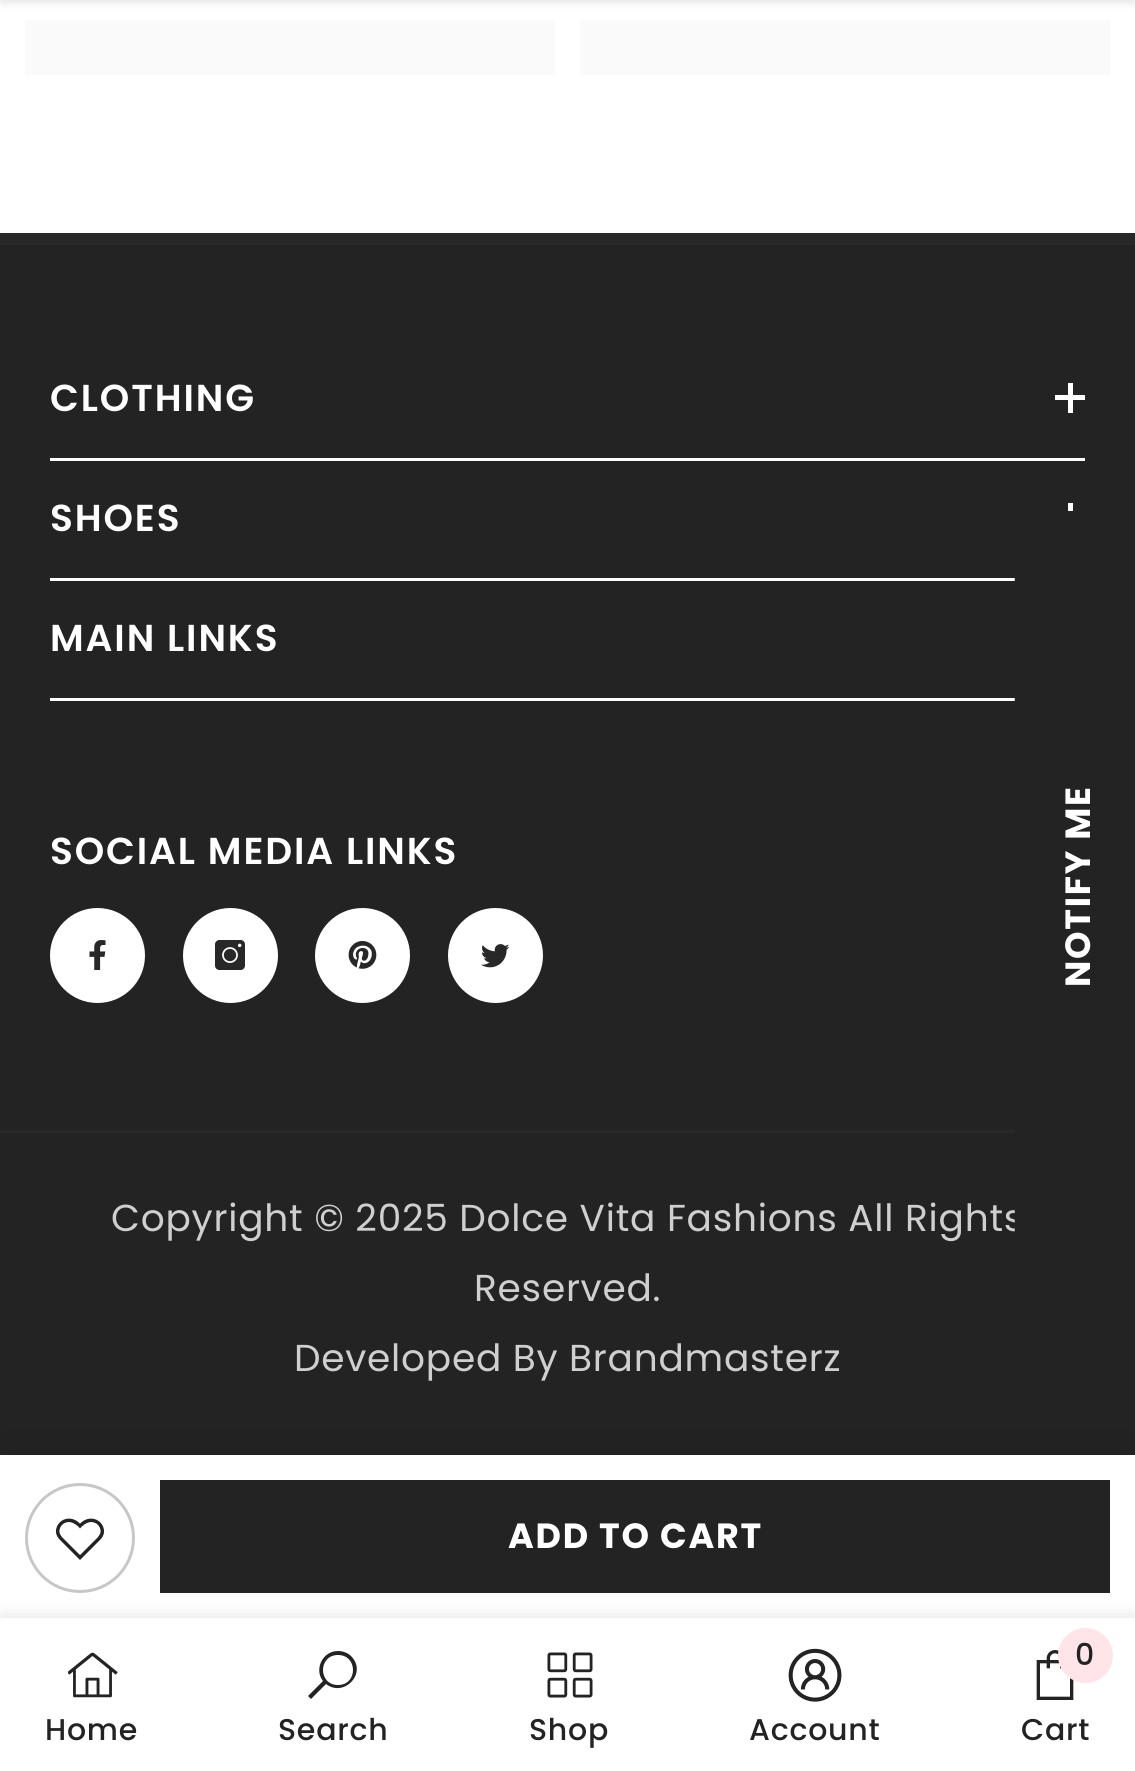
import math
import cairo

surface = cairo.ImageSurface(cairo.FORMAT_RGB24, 1135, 1771)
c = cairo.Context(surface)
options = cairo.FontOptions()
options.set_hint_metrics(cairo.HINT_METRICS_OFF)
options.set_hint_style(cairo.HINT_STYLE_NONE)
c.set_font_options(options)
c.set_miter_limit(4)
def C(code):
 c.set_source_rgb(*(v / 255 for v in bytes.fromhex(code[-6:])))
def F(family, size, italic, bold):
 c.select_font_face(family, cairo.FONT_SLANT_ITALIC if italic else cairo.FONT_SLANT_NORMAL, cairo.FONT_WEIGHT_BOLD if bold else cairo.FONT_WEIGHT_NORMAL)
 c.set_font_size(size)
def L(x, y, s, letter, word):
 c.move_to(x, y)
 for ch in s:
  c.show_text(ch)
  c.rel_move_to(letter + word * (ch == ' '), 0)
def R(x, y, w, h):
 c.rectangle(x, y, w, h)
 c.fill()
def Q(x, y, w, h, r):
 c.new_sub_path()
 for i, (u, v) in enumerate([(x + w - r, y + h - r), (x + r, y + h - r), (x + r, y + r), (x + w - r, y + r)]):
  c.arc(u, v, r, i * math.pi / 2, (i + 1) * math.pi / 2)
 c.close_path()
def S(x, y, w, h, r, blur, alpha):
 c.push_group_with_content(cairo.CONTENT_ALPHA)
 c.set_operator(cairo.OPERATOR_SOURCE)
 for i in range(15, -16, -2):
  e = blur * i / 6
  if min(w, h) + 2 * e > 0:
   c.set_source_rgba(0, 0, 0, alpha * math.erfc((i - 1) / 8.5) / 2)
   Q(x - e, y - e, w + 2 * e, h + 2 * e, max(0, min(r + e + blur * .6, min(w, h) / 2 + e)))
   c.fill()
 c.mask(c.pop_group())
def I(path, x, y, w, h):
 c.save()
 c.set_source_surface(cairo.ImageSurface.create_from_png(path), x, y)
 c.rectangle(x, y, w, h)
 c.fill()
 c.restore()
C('ffffff')
c.paint()
C('000000')
S(0,-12,1135,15,0,4,.1)
C('232323')
R(0,245,1135,885)
C('282828')
R(0,233,1135,12)
C('ffffff')
R(50,458,1035,3)
F('Poppins SemiBold',37.5,0,0)
L(50,411,'CLOTHING',1.9,0)
R(1068,383,5,30)
R(1055,395,30,5)
R(50,578,965,3)
L(50,531,'SHOES',1.9,0)
R(1068,503,5,8)
R(50,698,965,3)
L(50,651,'MAIN LINKS',1.9,0)
L(50,864,'SOCIAL MEDIA LINKS',1.9,0)
c.new_path()
c.arc(97.5,955.5,46,0,2 * math.pi)
c.fill_preserve()
c.set_line_width(3)
c.stroke()
I('1.png',89,940,17,30)
c.arc(230.5,955.5,46,0,2 * math.pi)
c.fill_preserve()
c.stroke()
I('2.png',215,940,30,30)
c.arc(362.5,955.5,46,0,2 * math.pi)
c.fill_preserve()
c.stroke()
I('3.png',348,941,29,28)
c.arc(495.5,955.5,46,0,2 * math.pi)
c.fill_preserve()
c.stroke()
I('4.png',481,944,29,24)
C('232323')
R(0,1133,1135,322)
C('282828')
R(0,1130,1015,3)
F('Poppins',37.5,0,0)
C('cfcfcf')
L(111,1231,'Copyright © 2025 Dolce Vita Fashions All Rights',.75,0)
L(474,1301,'Reserved.',.75,0)
L(294,1371,'Developed By Brandmasterz',.75,0)
gradient = cairo.LinearGradient(-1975,48,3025,47)
gradient.add_color_stop_rgba(.04,0.98,0.98,0.98,1)
gradient.add_color_stop_rgba(.25,0.945,0.949,0.953,1)
gradient.add_color_stop_rgba(.36,0.98,0.98,0.98,1)
c.set_source(gradient)
R(25,20,530,55)
gradient = cairo.LinearGradient(-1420,48,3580,47)
gradient.add_color_stop_rgba(.04,0.98,0.98,0.98,1)
gradient.add_color_stop_rgba(.25,0.945,0.949,0.953,1)
gradient.add_color_stop_rgba(.36,0.98,0.98,0.98,1)
c.set_source(gradient)
R(580,20,530,55)
C('000000')
S(0,1458,1135,162,0,25,.1)
C('ffffff')
R(0,1455,1135,163)
c.arc(80,1538,53.5,0,2 * math.pi)
C('c7c7c7')
c.stroke()
I('5.png',55,1518,50,42)
C('232323')
R(160,1480,950,113)
F('Poppins',35,0,1)
C('ffffff')
L(508,1548,'ADD TO CART',1.75,0)
C('000000')
S(0,1618,1135,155,0,11,.12)
C('ffffff')
R(0,1618,1135,153)
I('6.png',68,1652,50,46)
F('Poppins Medium',30,0,0)
C('232323')
L(45,1740,'Home',.75,0)
c.new_path()
c.move_to(338,1651)
c.curve_to(322,1651,314,1670,323,1681)
c.line_to(308,1696)
c.line_to(311,1699)
c.line_to(326,1684)
c.curve_to(344,1698,368,1673,351,1656)
c.curve_to(348,1653,343,1651,338,1651)
c.close_path()
c.move_to(338,1655)
c.curve_to(358,1655,358,1685,338,1685)
c.curve_to(318,1685,318,1655,338,1655)
c.close_path()
c.fill()
L(278,1740,'Search',.75,0)
I('7.png',547,1652,46,46)
L(529,1740,'Shop',.75,0)
I('8.png',788,1648,54,54)
L(749,1740,'Account',.75,0)
I('9.png',1036,1650,38,50)
C('ffe5e8')
c.arc(1085.5,1655.5,27.5,0,2 * math.pi)
c.fill()
C('232323')
L(1075,1665,'0',.75,0)
L(1021,1740,'Cart',.75,0)
c.new_path()
c.move_to(1015,1249)
c.line_to(1015,524)
c.curve_to(1015,517,1021,511,1028,511)
c.line_to(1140,511)
c.line_to(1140,1261)
c.line_to(1028,1261)
c.curve_to(1021,1261,1015,1256,1015,1249)
c.close_path()
c.fill()
c.new_path()
c.move_to(1016,1249)
c.line_to(1016,524)
c.curve_to(1016,517.5,1021.5,512.5,1027.5,512.5)
c.line_to(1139,512.5)
c.line_to(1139,1260)
c.line_to(1027.5,1260)
c.curve_to(1021.5,1260,1016,1255,1016,1249)
c.close_path()
c.set_line_width(2.5)
c.stroke()
F('Poppins',35,0,1)
C('ffffff')
c.save()
c.translate(1090,987)
c.rotate(-90 * math.pi / 180)
L(0,0,'NOTIFY ME',1.75,0)
c.restore()
surface.write_to_png('o.png')
